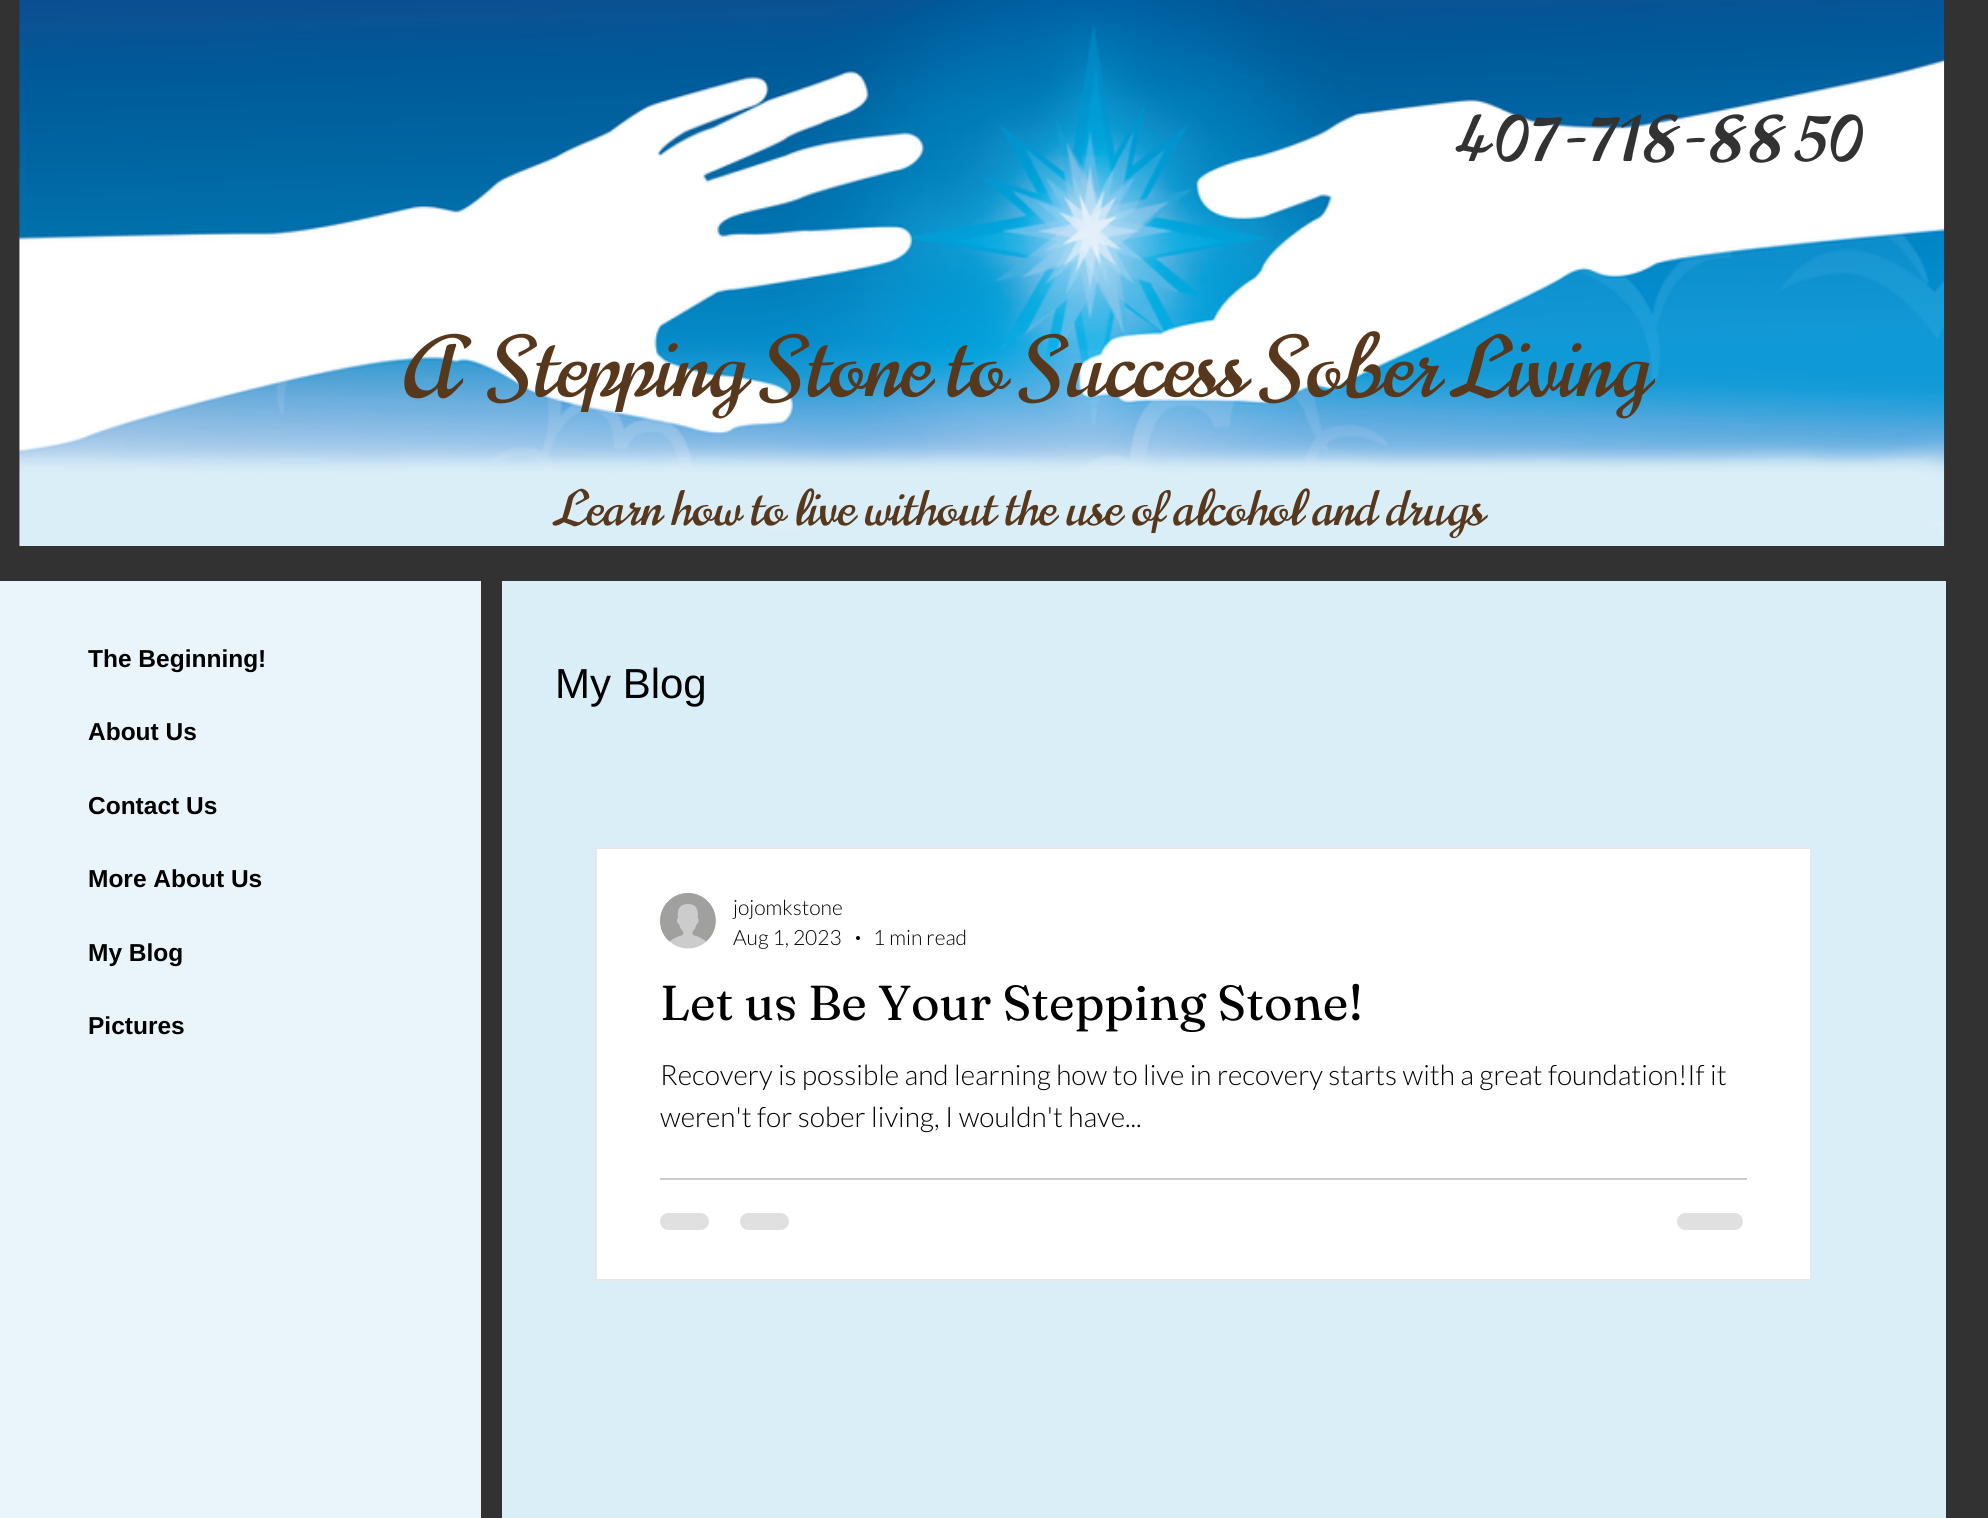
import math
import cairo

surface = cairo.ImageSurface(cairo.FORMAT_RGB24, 1988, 1518)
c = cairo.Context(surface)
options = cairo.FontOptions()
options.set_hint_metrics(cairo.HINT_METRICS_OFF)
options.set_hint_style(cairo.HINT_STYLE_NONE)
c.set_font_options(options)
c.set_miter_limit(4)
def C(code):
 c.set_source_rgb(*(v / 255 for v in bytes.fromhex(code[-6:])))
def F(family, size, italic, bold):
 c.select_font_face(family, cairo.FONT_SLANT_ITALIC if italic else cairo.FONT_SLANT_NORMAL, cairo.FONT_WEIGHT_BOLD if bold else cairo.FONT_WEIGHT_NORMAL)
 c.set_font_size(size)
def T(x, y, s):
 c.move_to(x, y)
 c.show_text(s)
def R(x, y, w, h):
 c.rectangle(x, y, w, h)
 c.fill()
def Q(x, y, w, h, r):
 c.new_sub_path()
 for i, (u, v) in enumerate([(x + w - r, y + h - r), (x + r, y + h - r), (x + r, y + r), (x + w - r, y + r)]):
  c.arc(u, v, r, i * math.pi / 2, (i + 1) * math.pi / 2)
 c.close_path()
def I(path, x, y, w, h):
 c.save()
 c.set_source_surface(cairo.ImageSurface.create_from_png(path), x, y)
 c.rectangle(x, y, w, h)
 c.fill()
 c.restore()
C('323232')
c.paint()
I('1.png',19,0,1926,546)
F('Norican',63,0,0)
C('323232')
T(1455,161,'407-718-8850')
F('Norican',84,0,0)
C('58381d')
T(401,396,'A  Stepping Stone to Success Sober Living')
F('Norican',49,0,0)
T(556,525,'Learn how to live without the use of alcohol and drugs')
C('eaf5fb')
R(0,581,481,937)
F('Liberation Sans',24.5,0,1)
C('000000')
T(88,667,'The Beginning!')
T(88,740,'About Us')
T(88,814,'Contact Us')
T(88,887,'More About Us')
T(88,961,'My Blog')
T(88,1034,'Pictures')
C('daeef7')
R(502,581,1444,937)
F('Liberation Sans',42,0,0)
C('000000')
T(555,698,'My Blog')
c.rectangle(596,848,1214,432)
C('e8e6e6')
c.stroke()
C('ffffff')
R(597,849,1213,430)
I('2.png',660,893,56,56)
F('Lato Light',21,0,0)
C('000000')
T(733,915,'jojomkstone')
T(733,945,'Aug 1, 2023')
c.new_path()
c.arc(858,938,2,0,2 * math.pi)
c.fill()
T(873,945,'1 min read')
F('Fraunces',49,0,0)
T(660,1020,'Let us Be Your Stepping Stone!')
F('Lato Light',28,0,0)
T(660,1085,'Recovery is possible and learning how to live in recovery starts with a great foundation!If it')
T(660,1127,'weren\'t for sober living, I wouldn\'t have...')
C('cccccc')
R(660,1178,1087,2)
C('e0e0e0')
Q(660,1213,49,17,8.5)
c.fill()
Q(740,1213,49,17,8.5)
c.fill()
Q(1677,1213,66,17,8.5)
c.fill()
surface.write_to_png('o.png')
